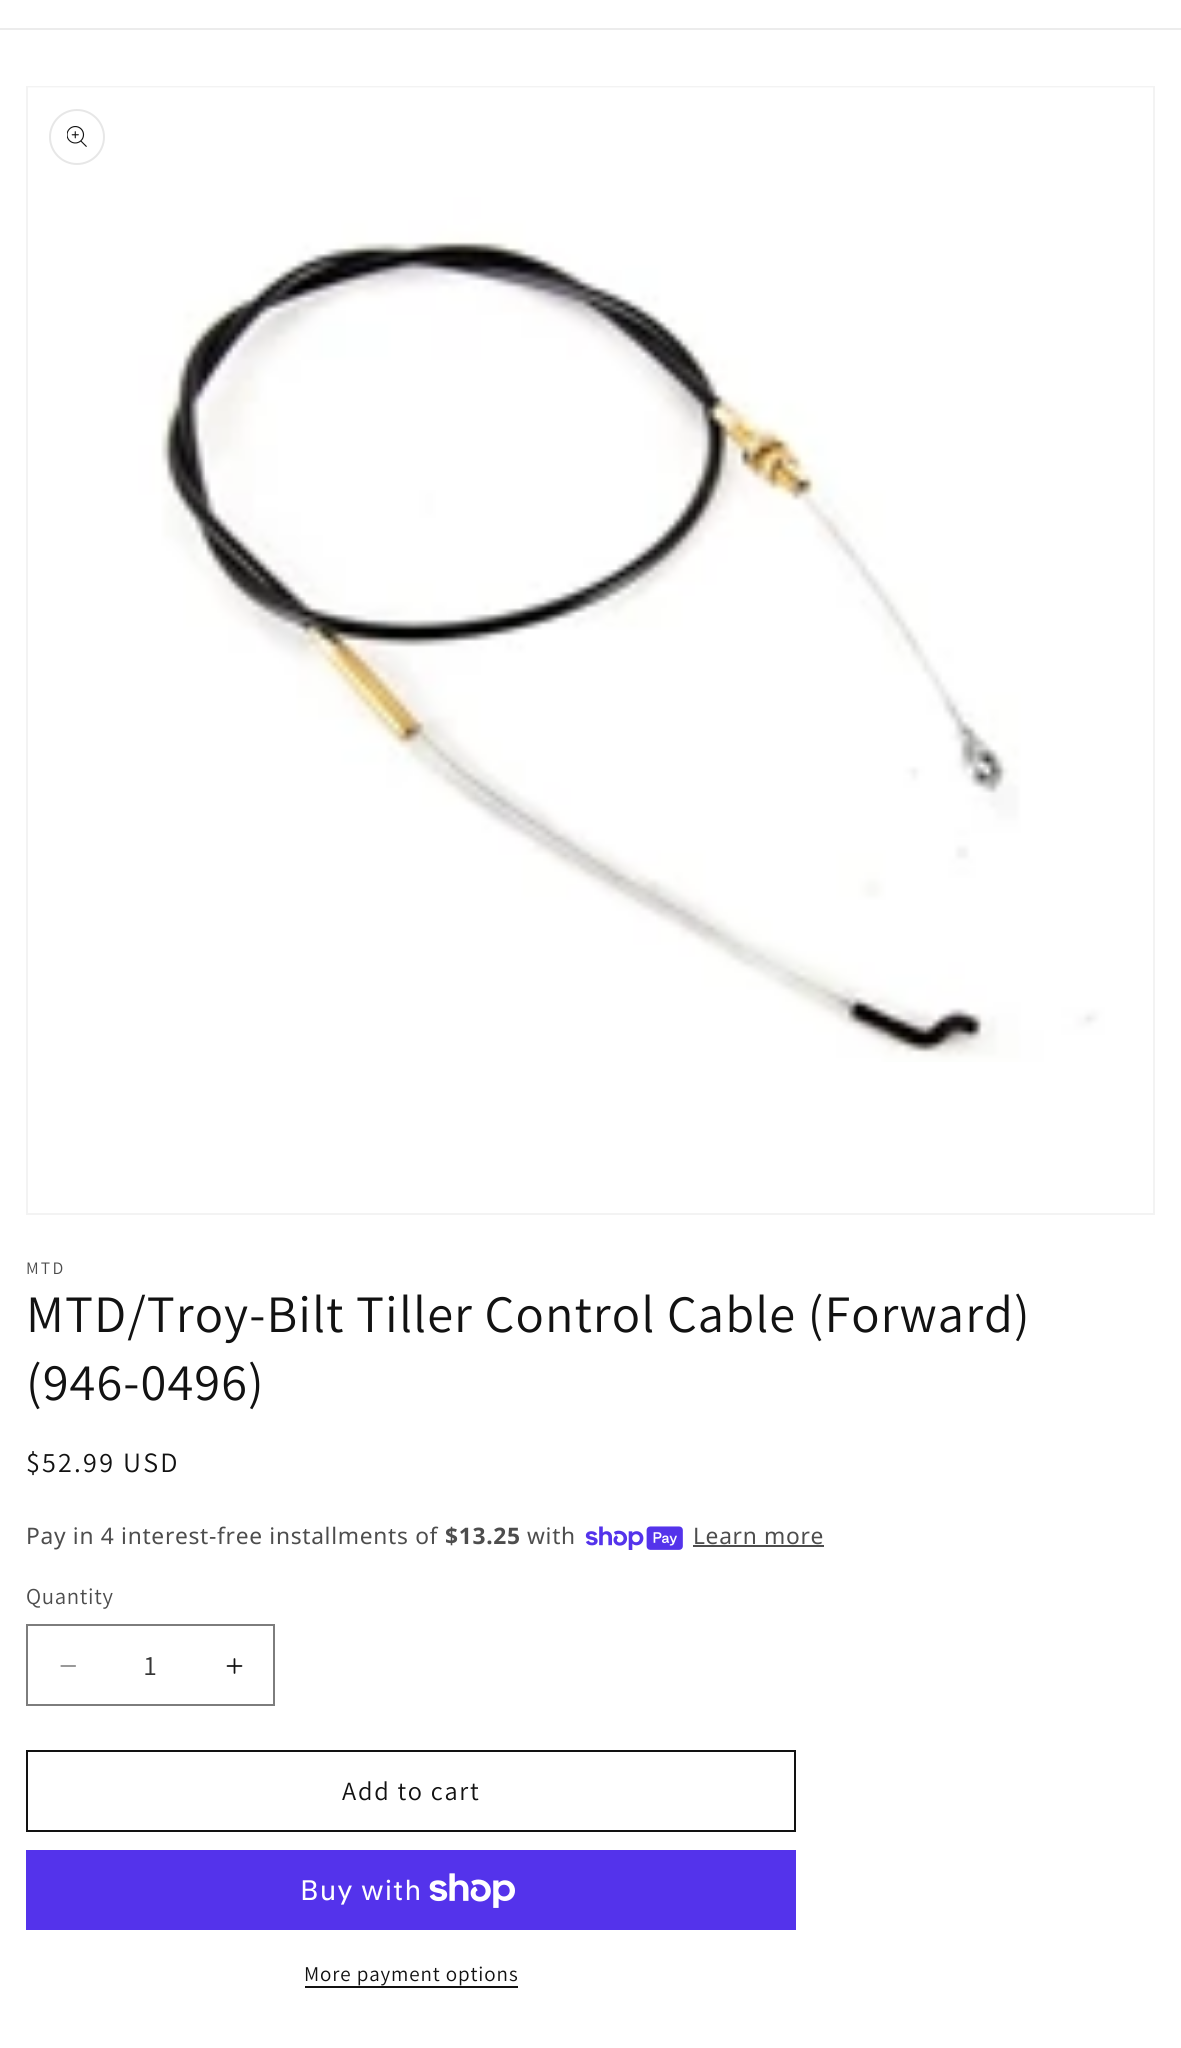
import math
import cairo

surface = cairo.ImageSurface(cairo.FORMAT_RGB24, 1181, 2048)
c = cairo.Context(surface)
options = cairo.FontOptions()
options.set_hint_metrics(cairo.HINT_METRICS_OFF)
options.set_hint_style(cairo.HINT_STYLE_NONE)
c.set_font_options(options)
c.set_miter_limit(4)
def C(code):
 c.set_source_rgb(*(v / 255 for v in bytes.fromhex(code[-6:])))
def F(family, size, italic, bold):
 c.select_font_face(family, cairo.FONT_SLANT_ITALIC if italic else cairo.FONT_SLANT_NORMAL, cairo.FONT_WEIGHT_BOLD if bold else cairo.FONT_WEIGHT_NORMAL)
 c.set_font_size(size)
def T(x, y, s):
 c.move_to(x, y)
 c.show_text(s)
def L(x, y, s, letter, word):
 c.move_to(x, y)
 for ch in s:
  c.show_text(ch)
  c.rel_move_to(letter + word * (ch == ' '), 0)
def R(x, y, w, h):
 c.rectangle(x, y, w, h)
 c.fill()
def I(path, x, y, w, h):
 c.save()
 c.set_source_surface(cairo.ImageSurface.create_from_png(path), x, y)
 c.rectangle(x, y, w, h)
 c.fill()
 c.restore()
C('ffffff')
c.paint()
C('ececec')
R(0,28,1181,2)
c.rectangle(27,87,1127,1127)
C('f3f3f3')
c.stroke()
I('1.png',28,87,1125,975)
c.arc(77,137,27,0,2 * math.pi)
C('e7e7e7')
c.stroke()
I('2.png',67,126,20,21)
F('Assistant',17.5,0,0)
C('4d4d4d')
L(26,1274,'MTD',2.25,0)
F('Assistant',52.5,0,0)
C('121212')
L(26,1332,'MTD/Troy-Bilt Tiller Control Cable (Forward)',1.05,0)
L(26,1400,'(946-0496)',1.05,0)
F('Assistant',28,0,0)
L(26,1472,'$52.99 USD',2.25,0)
F('Noto Sans',22.75,0,0)
C('4d4d4d')
L(26,1544,'Pay in 4 interest-free installments of',.7,0)
F('Noto Sans',22.75,0,1)
L(445,1544,'$13.25',.7,0)
F('Noto Sans',22.75,0,0)
L(527,1544,'with',.7,0)
I('3.png',585,1526,98,24)
L(693,1544,'Learn more',.7,0)
R(693,1545,131,2)
F('Assistant',22.75,0,0)
L(26,1604,'Quantity',.7,0)
I('4.png',60,1665,16,2)
I('5.png',226,1658,17,16)
c.rectangle(27,1625,247,80)
C('7d7d7d')
c.stroke()
F('Assistant',28,0,0)
C('363636')
T(144,1675,'1')
c.rectangle(27,1751,768,80)
C('121212')
c.stroke()
F('Assistant',26.25,0,0)
L(342,1800,'Add to cart',1.75,0)
C('5433eb')
R(26,1850,770,80)
F('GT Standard',28,0,0)
C('ffffff')
L(300,1900,'Buy with',1.05,0)
I('6.png',429,1873,86,35)
F('Assistant',21,0,0)
C('121212')
L(304,1981,'More payment options',.9,0)
R(305,1986,213,2)
surface.write_to_png('o.png')
